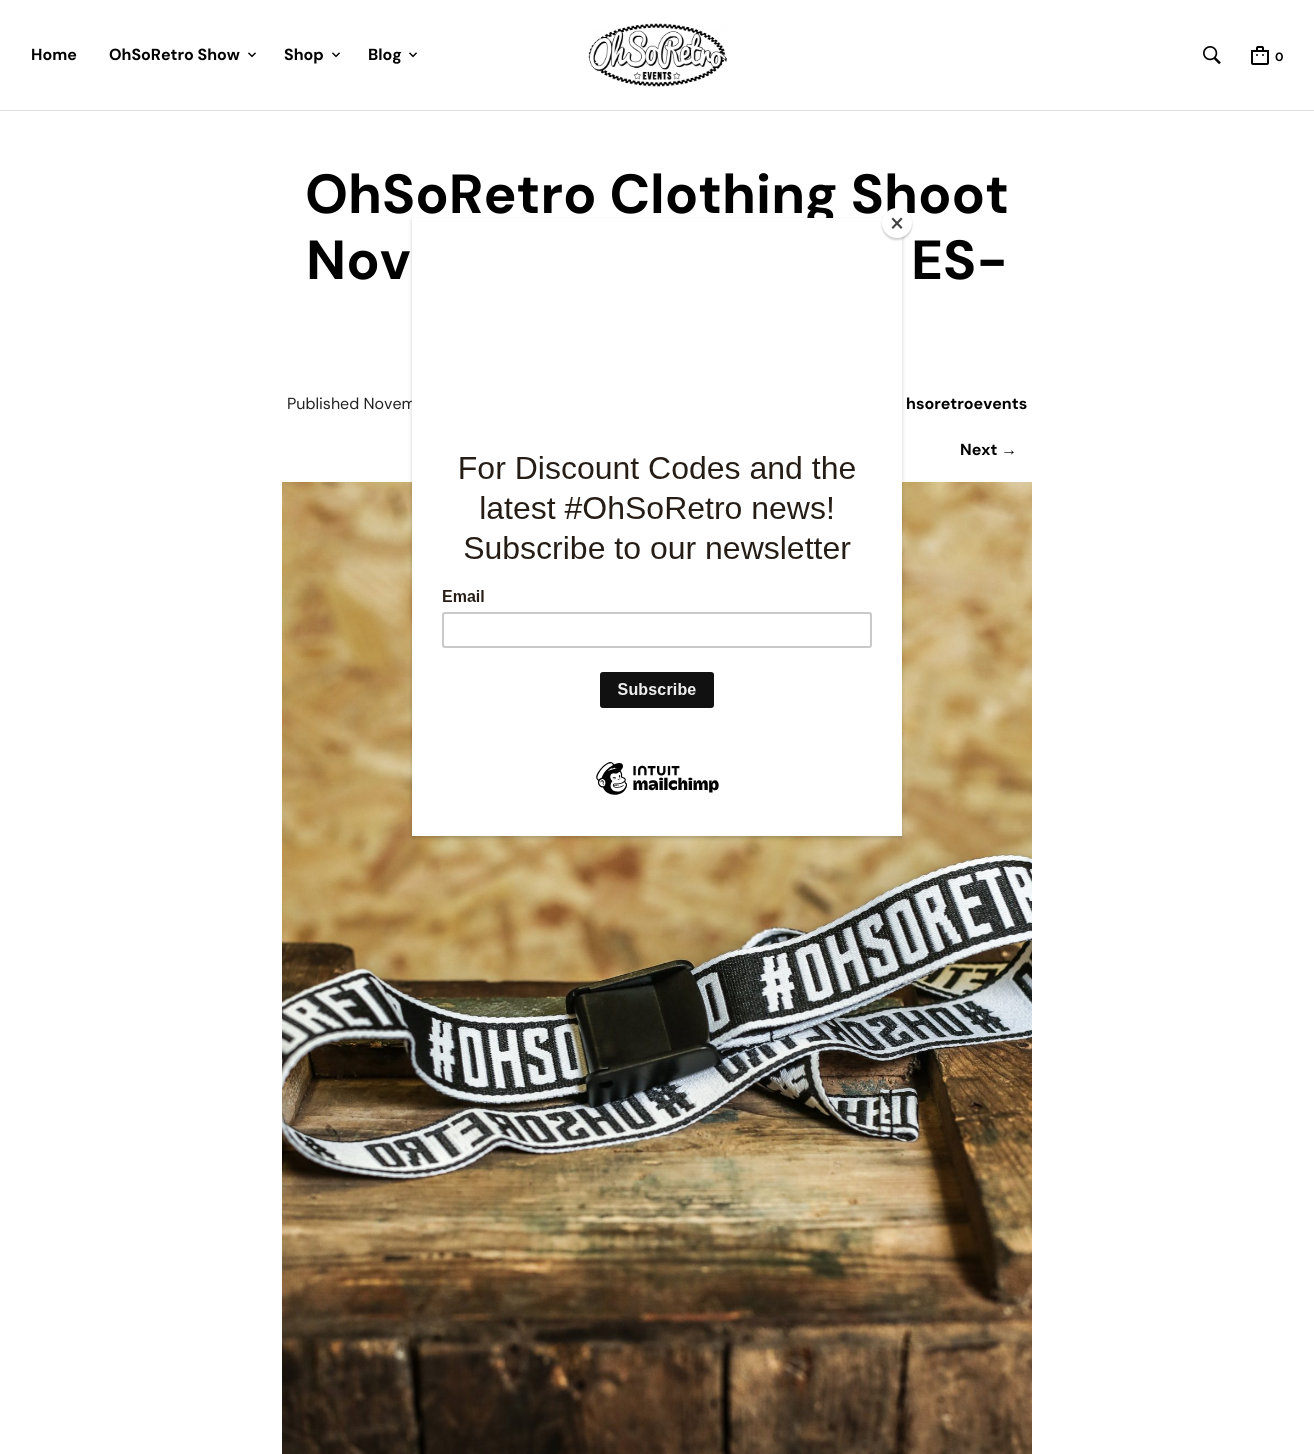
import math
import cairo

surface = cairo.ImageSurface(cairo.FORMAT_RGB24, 1314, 1454)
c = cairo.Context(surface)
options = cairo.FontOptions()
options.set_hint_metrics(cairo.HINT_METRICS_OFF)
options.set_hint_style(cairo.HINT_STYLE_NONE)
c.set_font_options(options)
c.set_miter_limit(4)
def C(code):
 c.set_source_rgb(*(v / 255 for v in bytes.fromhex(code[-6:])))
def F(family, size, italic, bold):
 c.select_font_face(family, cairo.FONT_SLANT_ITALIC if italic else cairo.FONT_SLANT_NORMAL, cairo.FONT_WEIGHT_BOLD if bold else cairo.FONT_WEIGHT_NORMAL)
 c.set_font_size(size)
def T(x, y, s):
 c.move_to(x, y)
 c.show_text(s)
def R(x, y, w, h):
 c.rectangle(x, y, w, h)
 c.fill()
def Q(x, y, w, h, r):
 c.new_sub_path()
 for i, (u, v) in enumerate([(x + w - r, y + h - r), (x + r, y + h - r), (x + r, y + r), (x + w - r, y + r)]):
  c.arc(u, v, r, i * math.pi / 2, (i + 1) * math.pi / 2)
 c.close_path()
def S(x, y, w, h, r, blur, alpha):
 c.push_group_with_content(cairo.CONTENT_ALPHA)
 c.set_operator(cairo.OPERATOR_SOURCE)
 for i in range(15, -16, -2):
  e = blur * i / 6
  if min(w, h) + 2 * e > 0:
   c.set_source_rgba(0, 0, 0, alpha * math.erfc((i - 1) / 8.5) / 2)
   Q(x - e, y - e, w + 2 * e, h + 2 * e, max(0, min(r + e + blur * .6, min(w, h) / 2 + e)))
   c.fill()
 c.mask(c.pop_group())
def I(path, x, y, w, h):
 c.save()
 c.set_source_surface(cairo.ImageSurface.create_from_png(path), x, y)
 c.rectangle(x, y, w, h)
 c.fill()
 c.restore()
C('ffffff')
c.paint()
C('dedede')
R(0,110,1314,1)
F('DM Sans',16,0,1)
C('000000')
T(31,60,'Home')
T(109,60,'OhSoRetro Show')
I('1.png',248,52,8,6)
T(284,60,'Shop')
I('1.png',332,52,8,6)
T(368,60,'Blog')
I('1.png',409,52,8,6)
I('2.png',588,23,139,64)
I('3.png',1203,46,18,19)
I('4.png',1251,46,18,19)
F('DM Sans',12,0,1)
T(1275,61,'0')
F('DM Sans',55,0,1)
T(305,213,'OhSoRetro Clothing Shoot')
T(306,279,'Nov')
T(911,279,'ES-')
F('DM Sans',16,0,0)
C('222222')
T(287,409,'Published Novem')
F('DM Sans',16,0,1)
C('000000')
T(906,409,'hsoretroevents')
T(960,455,'Next')
F('Liberation Sans',16,0,1)
T(1001,455,'→')
I('5.png',282,482,750,972)
C('000000')
S(412,220,490,618,0,2,.2)
I('6.png',412,218,490,618)
S(882,210,30,30,15,1,.2)
C('ffffff')
c.arc(897,223,15,0,2 * math.pi)
c.fill()
C('414141')
c.new_path()
c.move_to(901,217.5)
c.line_to(902.5,219)
c.line_to(893,229)
c.line_to(891.5,227.5)
c.close_path()
c.fill()
c.new_path()
c.move_to(891.5,219)
c.line_to(893,217.5)
c.line_to(902.5,227.5)
c.line_to(901,229)
c.close_path()
c.fill()
surface.write_to_png('o.png')
